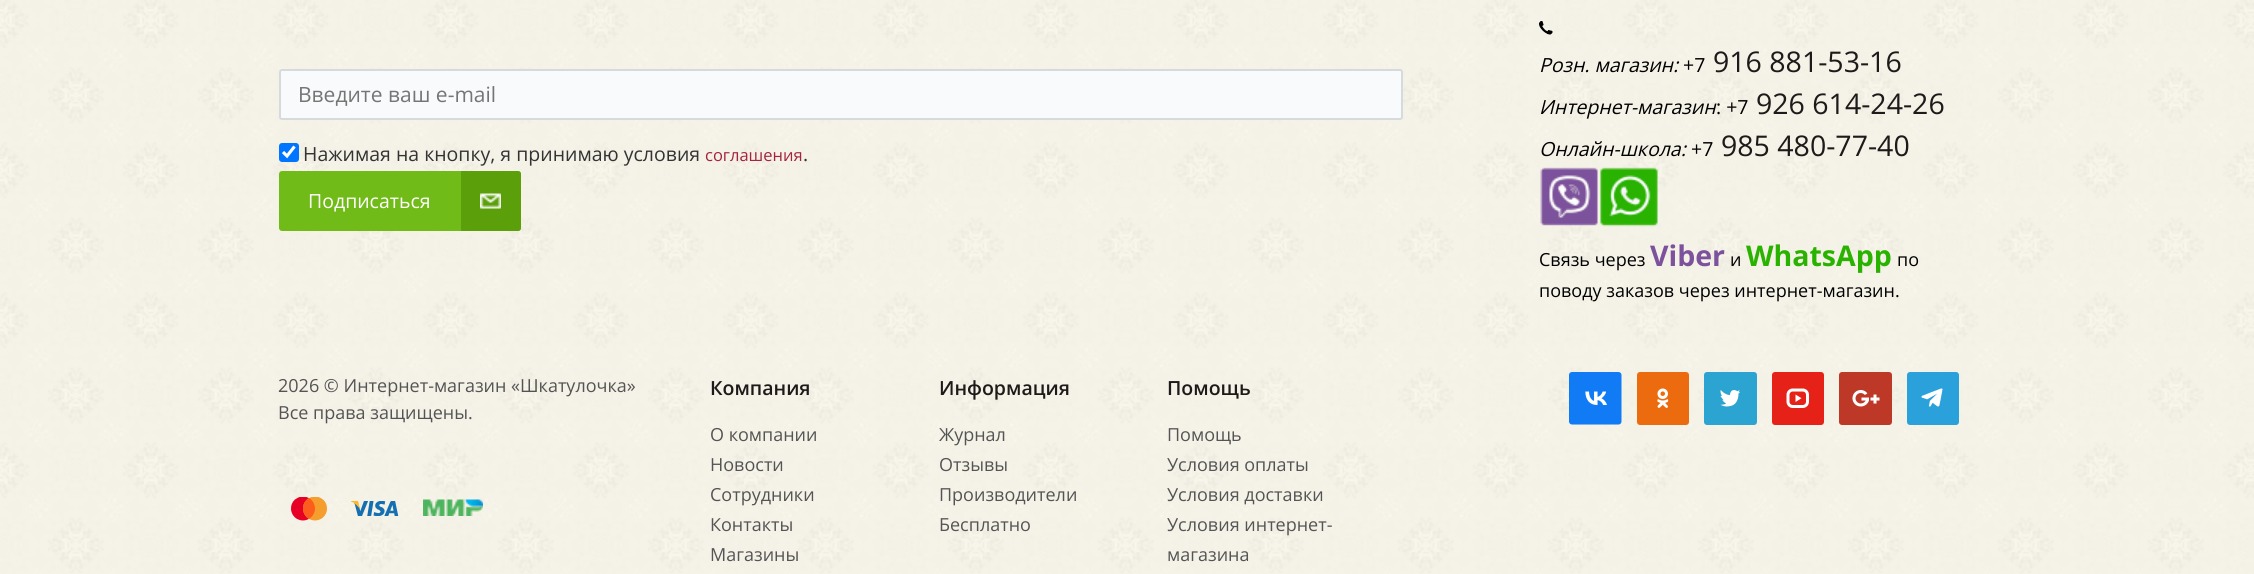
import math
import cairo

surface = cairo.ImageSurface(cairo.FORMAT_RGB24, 2254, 574)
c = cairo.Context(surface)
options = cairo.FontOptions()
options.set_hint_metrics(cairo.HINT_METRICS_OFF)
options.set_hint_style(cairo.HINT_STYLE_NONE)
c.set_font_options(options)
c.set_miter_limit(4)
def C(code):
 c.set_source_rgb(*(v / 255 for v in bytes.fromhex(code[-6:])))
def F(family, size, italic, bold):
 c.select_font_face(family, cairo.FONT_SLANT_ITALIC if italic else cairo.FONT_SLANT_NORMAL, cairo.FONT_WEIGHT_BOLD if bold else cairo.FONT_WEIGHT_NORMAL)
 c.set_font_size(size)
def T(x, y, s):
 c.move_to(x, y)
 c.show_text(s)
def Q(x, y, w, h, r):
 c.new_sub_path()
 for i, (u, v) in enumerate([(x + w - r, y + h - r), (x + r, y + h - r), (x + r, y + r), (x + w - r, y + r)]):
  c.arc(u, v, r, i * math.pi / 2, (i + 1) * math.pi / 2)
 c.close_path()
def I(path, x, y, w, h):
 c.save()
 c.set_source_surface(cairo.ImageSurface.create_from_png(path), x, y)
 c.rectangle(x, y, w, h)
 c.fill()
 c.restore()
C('ffffff')
c.paint()
I('1.png',0,0,2254,574)
C('f8fafc')
Q(280,70,1122,49,2)
c.fill_preserve()
C('d5dadc')
c.stroke()
F('Open Sans',21,0,0)
C('757575')
T(298,102,'Введите ваш e-mail')
C('0075ff')
Q(279,143,20,19,3)
c.fill()
c.new_path()
c.move_to(283,152)
c.line_to(287,156)
c.line_to(294.5,146.5)
C('ffffff')
c.set_line_width(3.1)
c.stroke()
F('Open Sans',19.5,0,0)
C('333333')
T(303,161,'Нажимая на кнопку, я принимаю условия')
F('Open Sans',16.5,0,0)
C('a4233d')
T(705,161,'соглашения')
F('Open Sans',19.5,0,0)
C('333333')
T(803,161,'.')
C('70bb18')
Q(279,171,242,60,3)
c.fill()
C('ffffff')
T(308,208,'Подписаться')
C('5b9f0b')
c.new_path()
c.move_to(461,171)
c.line_to(518,171)
c.curve_to(519.5,171,521,172.5,521,174)
c.line_to(521,228)
c.curve_to(521,229.5,519.5,231,518,231)
c.line_to(461,231)
c.close_path()
c.fill()
I('2.png',480,193,21,16)
I('3.png',1539,21,14,14)
F('Open Sans',19.5,1,0)
C('000000')
T(1539,72,'Розн. магазин:')
F('Open Sans',19.5,0,0)
T(1683,72,'+7')
F('Open Sans',28.5,0,0)
C('1d1a1a')
T(1713,72,'916 881-53-16')
F('Open Sans',19.5,1,0)
C('000000')
T(1539,114,'Интернет-магазин')
F('Open Sans',19.5,0,0)
T(1716,114,': +7')
F('Open Sans',28.5,0,0)
C('1d1a1a')
T(1756,114,'926 614-24-26')
F('Open Sans',19.5,1,0)
C('000000')
T(1539,156,'Онлайн-школа:')
F('Open Sans',19.5,0,0)
T(1691,156,'+7')
F('Open Sans',28.5,0,0)
C('1d1a1a')
T(1721,156,'985 480-77-40')
I('4.png',1540,167,118,60)
F('Open Sans',18,0,0)
C('000000')
T(1539,266,'Связь через')
F('Open Sans',28.5,0,1)
C('7c529c')
T(1650,266,'Viber')
F('Open Sans',18,0,0)
C('000000')
T(1730,266,'и')
F('Open Sans',28.5,0,1)
C('2ab200')
T(1746,266,'WhatsApp')
F('Open Sans',18,0,0)
C('000000')
T(1897,266,'по')
T(1539,297,'поводу заказов через интернет-магазин.')
C('545454')
T(278,392,'2026 © Интернет-магазин «Шкатулочка»')
T(278,419,'Все права защищены.')
I('5.png',291,497,36,24)
I('6.png',351,501,48,15)
I('7.png',423,499,60,17)
F('Open Sans SemiBold',19.5,0,0)
C('1d1a1a')
T(710,395,'Компания')
T(939,395,'Информация')
T(1167,395,'Помощь')
F('Open Sans',18,0,0)
C('545454')
T(710,441,'О компании')
T(710,471,'Новости')
T(710,501,'Сотрудники')
T(710,531,'Контакты')
T(710,561,'Магазины')
T(939,441,'Журнал')
T(939,471,'Отзывы')
T(939,501,'Производители')
T(939,531,'Бесплатно')
T(1167,441,'Помощь')
T(1167,471,'Условия оплаты')
T(1167,501,'Условия доставки')
T(1167,531,'Условия интернет-')
T(1167,561,'магазина')
I('8.png',1569,372,53,53)
I('9.png',1637,372,52,53)
I('10.png',1704,372,53,53)
I('11.png',1772,372,52,53)
I('12.png',1839,372,53,53)
I('13.png',1907,372,52,53)
surface.write_to_png('o.png')
